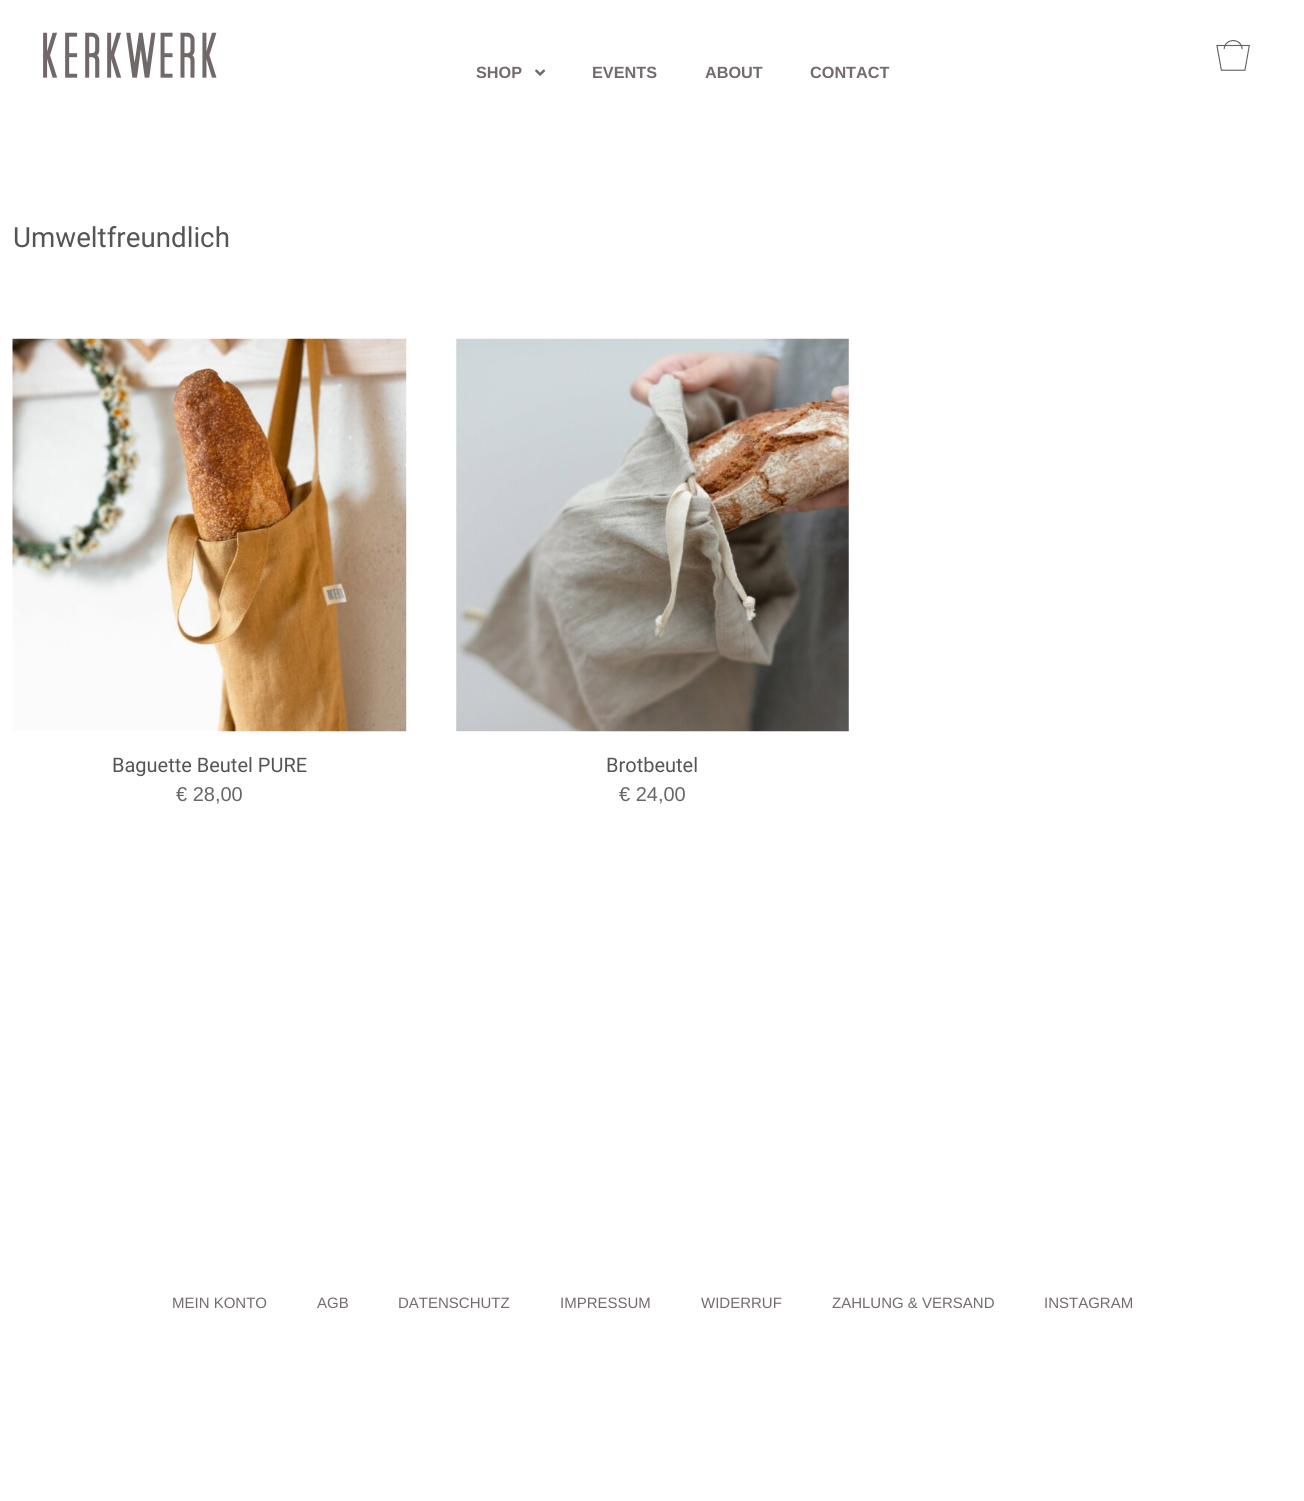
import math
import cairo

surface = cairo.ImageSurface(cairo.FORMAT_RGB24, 1304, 1501)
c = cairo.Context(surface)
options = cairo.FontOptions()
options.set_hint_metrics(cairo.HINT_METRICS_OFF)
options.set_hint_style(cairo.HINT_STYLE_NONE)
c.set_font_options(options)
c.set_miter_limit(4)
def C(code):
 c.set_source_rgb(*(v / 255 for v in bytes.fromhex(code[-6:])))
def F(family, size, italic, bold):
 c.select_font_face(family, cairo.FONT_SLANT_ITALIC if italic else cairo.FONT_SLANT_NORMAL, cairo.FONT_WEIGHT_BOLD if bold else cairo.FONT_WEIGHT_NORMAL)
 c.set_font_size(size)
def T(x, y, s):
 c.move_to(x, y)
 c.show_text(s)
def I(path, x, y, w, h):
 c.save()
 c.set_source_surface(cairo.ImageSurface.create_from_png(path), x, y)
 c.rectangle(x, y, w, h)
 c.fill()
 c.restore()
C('ffffff')
c.paint()
I('1.png',43,32,174,46)
I('2.png',1216,40,34,31)
F('Liberation Sans',16.25,0,1)
C('736b6d')
T(476,78,'SHOP')
I('3.png',535,69,11,7)
T(592,78,'EVENTS')
T(705,78,'ABOUT')
T(810,78,'CONTACT')
F('Roboto',27.75,0,0)
C('555555')
T(13,247,'Umweltfreundlich')
I('4.png',12,338,395,394)
F('Roboto',20,0,0)
T(112,772,'Baguette Beutel PURE')
F('Liberation Sans',20,0,0)
C('676767')
T(176,801,'€ 28,00')
I('5.png',456,338,393,394)
F('Roboto',20,0,0)
C('555555')
T(606,772,'Brotbeutel')
F('Liberation Sans',20,0,0)
C('676767')
T(619,801,'€ 24,00')
F('Liberation Sans',15,0,0)
C('736b6d')
T(172,1308,'MEIN KONTO')
T(317,1308,'AGB')
T(398,1308,'DATENSCHUTZ')
T(560,1308,'IMPRESSUM')
T(701,1308,'WIDERRUF')
T(832,1308,'ZAHLUNG & VERSAND')
T(1044,1308,'INSTAGRAM')
surface.write_to_png('o.png')
